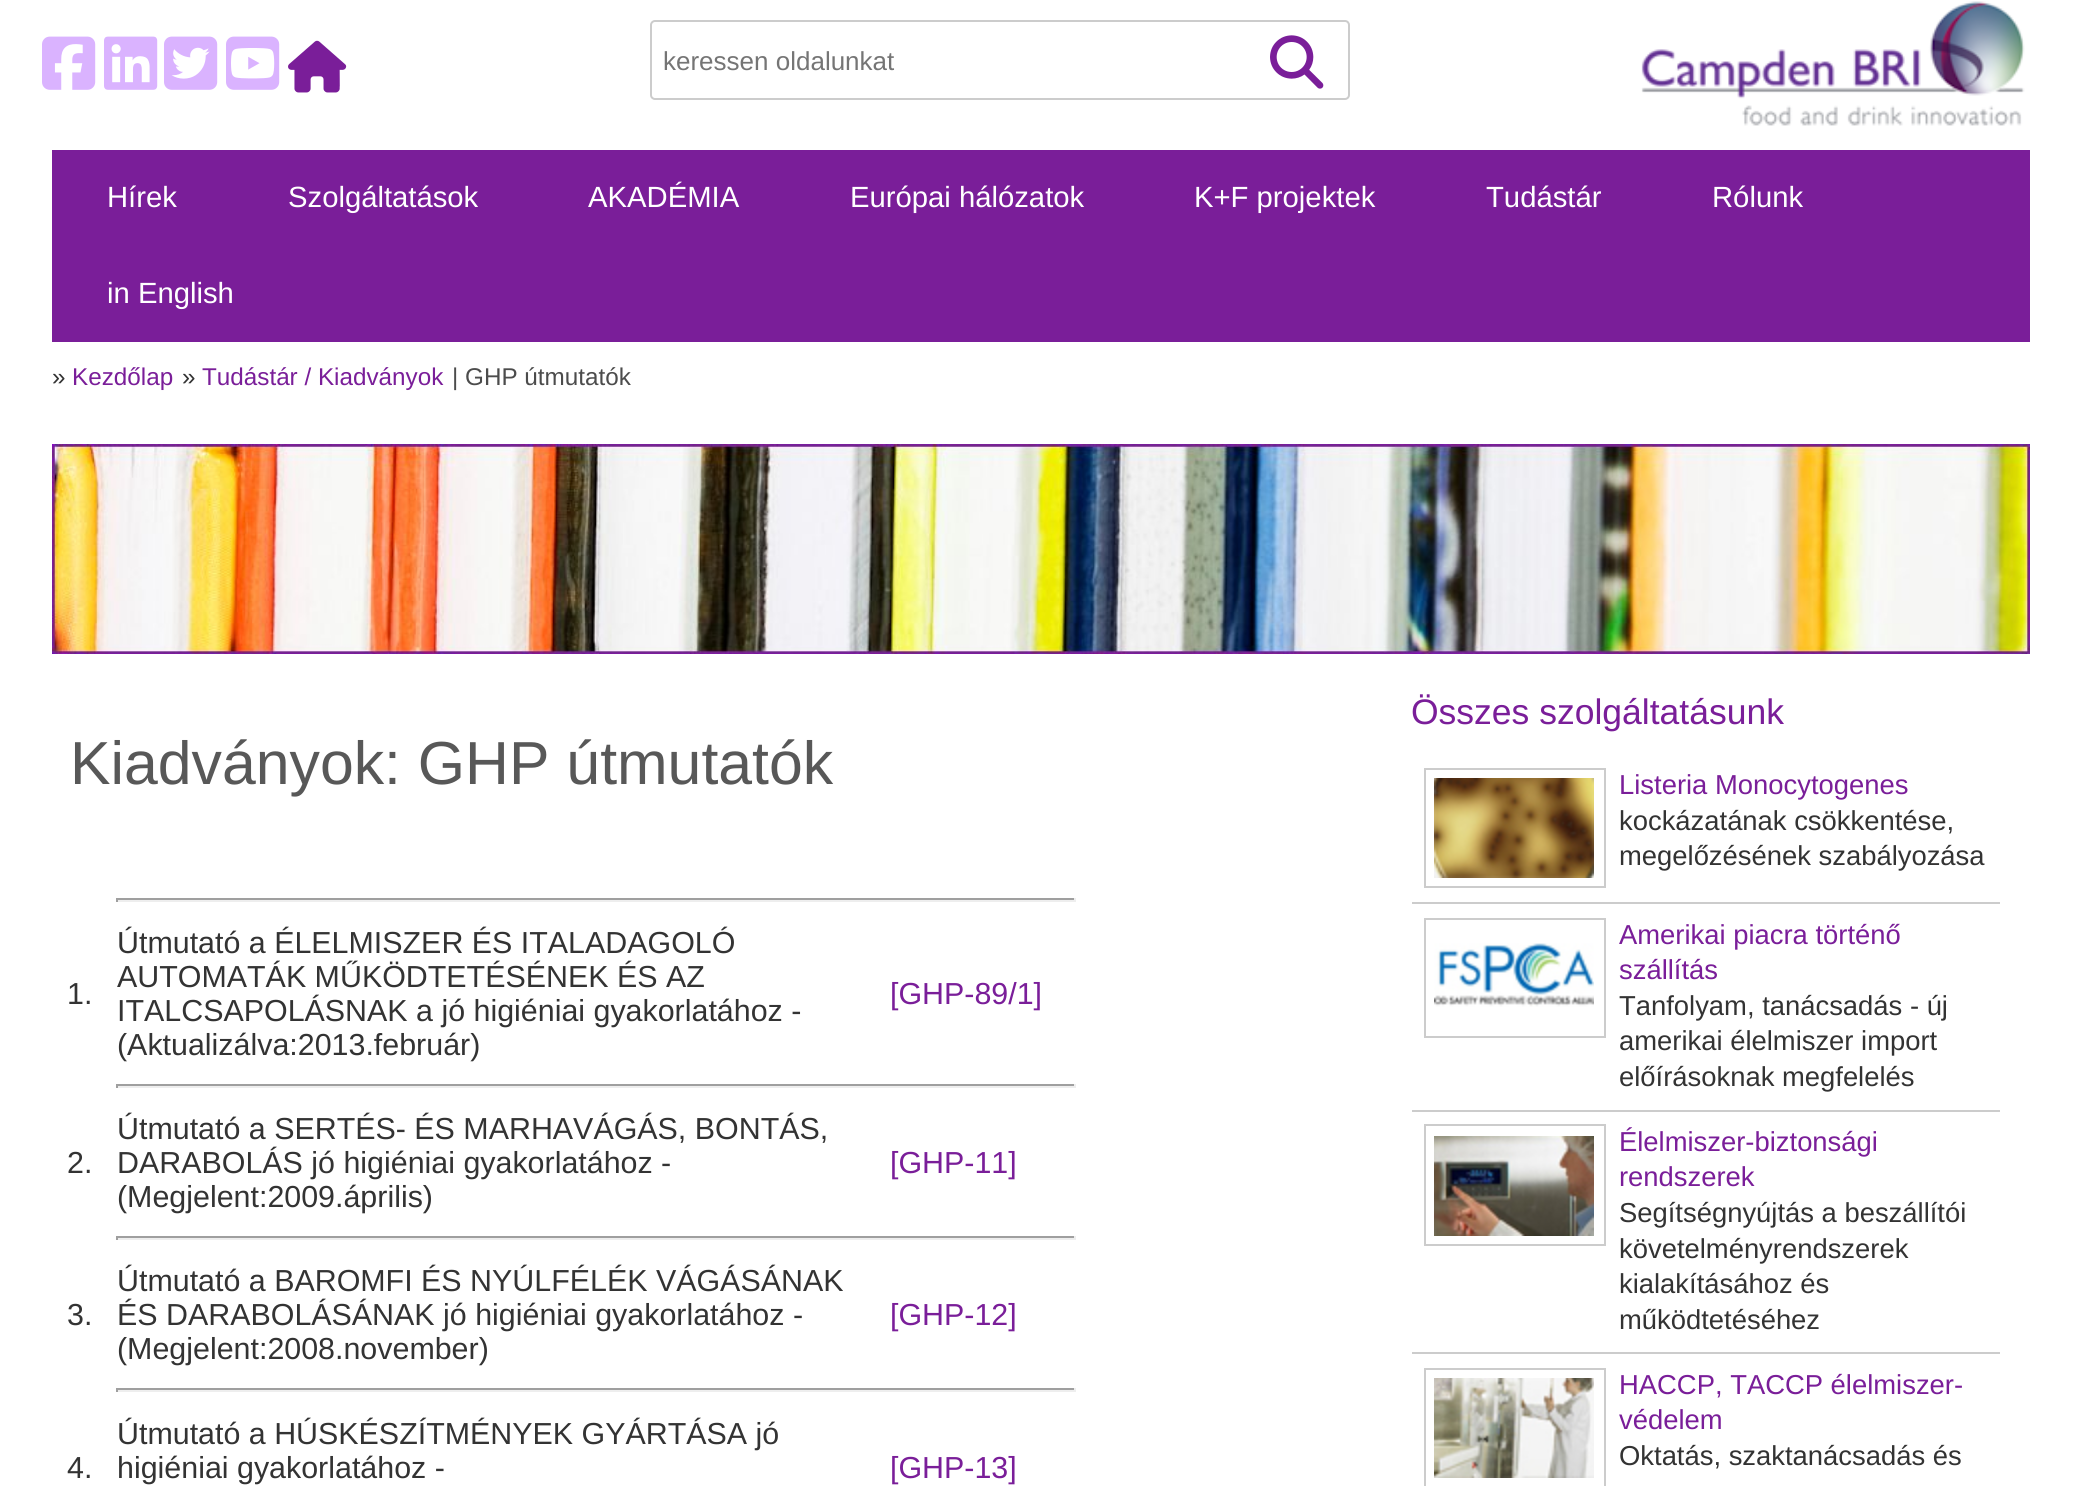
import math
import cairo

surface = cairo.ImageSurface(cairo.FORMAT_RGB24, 2082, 1486)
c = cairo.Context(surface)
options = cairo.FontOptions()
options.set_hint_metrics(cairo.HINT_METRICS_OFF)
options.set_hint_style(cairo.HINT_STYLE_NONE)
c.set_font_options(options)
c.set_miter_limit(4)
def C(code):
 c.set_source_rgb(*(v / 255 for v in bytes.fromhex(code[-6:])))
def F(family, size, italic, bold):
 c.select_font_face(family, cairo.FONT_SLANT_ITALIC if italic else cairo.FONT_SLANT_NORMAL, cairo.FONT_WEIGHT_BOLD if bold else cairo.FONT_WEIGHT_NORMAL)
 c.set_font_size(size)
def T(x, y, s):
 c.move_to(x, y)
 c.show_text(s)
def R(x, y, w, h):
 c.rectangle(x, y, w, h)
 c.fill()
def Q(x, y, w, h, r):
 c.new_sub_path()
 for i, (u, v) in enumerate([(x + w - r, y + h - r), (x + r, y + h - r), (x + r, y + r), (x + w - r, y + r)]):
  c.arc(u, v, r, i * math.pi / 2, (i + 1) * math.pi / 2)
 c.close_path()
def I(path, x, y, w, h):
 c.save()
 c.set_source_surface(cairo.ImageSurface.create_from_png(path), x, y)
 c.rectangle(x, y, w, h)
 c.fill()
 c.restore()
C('ffffff')
c.paint()
I('1.png',42,36,54,54)
I('2.png',104,36,54,54)
I('3.png',164,36,54,54)
I('4.png',226,36,54,54)
I('5.png',288,40,59,53)
Q(651,21,698,78,4)
C('cccccc')
c.stroke()
F('Liberation Sans',26,0,0)
C('757575')
T(663,70,'keressen oldalunkat')
I('6.png',1270,35,54,54)
I('7.png',1641,1,384,125)
C('7a1e99')
R(52,150,1978,192)
F('Liberation Sans',29.25,0,0)
C('ffffff')
T(107,207,'Hírek')
T(288,207,'Szolgáltatások')
T(588,207,'AKADÉMIA')
T(850,207,'Európai hálózatok')
T(1194,207,'K+F projektek')
T(1486,207,'Tudástár')
T(1712,207,'Rólunk')
T(107,303,'in English')
F('Liberation Sans',24.25,0,0)
C('333333')
T(52,385,'»')
C('7a1e99')
T(72,385,'Kezdőlap')
C('333333')
T(182,385,'»')
C('7a1e99')
T(202,385,'Tudástár / Kiadványok')
C('4c4c4c')
T(452,385,'| GHP útmutatók')
I('8.png',52,444,1978,210)
F('Liberation Sans',60.75,0,0)
C('585858')
T(70,784,'Kiadványok: GHP útmutatók')
C('9f9f9f')
R(116,898,960,2)
C('eeeeee')
R(1074,898,2,4)
R(116,900,960,2)
C('9f9f9f')
R(116,898,2,4)
F('Liberation Sans',30.4,0,0)
C('333333')
T(67,1004,'1.')
T(117,953,'Útmutató a ÉLELMISZER ÉS ITALADAGOLÓ')
T(117,987,'AUTOMATÁK MŰKÖDTETÉSÉNEK ÉS AZ')
T(117,1021,'ITALCSAPOLÁSNAK a jó higiéniai gyakorlatához -')
T(117,1055,'(Aktualizálva:2013.február)')
C('7a1e99')
T(890,1004,'[GHP-89/1]')
C('9f9f9f')
R(116,1084,960,2)
C('eeeeee')
R(1074,1084,2,4)
R(116,1086,960,2)
C('9f9f9f')
R(116,1084,2,4)
C('333333')
T(67,1173,'2.')
T(117,1139,'Útmutató a SERTÉS- ÉS MARHAVÁGÁS, BONTÁS,')
T(117,1173,'DARABOLÁS jó higiéniai gyakorlatához')
T(661,1173,'-')
T(117,1207,'(Megjelent:2009.április)')
C('7a1e99')
T(890,1173,'[GHP-11]')
C('9f9f9f')
R(116,1236,960,2)
C('eeeeee')
R(1074,1236,2,4)
R(116,1238,960,2)
C('9f9f9f')
R(116,1236,2,4)
C('333333')
T(67,1325,'3.')
T(117,1291,'Útmutató a BAROMFI ÉS NYÚLFÉLÉK VÁGÁSÁNAK')
T(117,1325,'ÉS DARABOLÁSÁNAK jó higiéniai gyakorlatához -')
T(117,1359,'(Megjelent:2008.november)')
C('7a1e99')
T(890,1325,'[GHP-12]')
C('9f9f9f')
R(116,1388,960,2)
C('eeeeee')
R(1074,1388,2,4)
R(116,1390,960,2)
C('9f9f9f')
R(116,1388,2,4)
C('333333')
T(67,1478,'4.')
T(117,1444,'Útmutató a HÚSKÉSZÍTMÉNYEK GYÁRTÁSA jó')
T(117,1478,'higiéniai gyakorlatához -')
C('7a1e99')
T(890,1478,'[GHP-13]')
F('Liberation Sans',35.5,0,0)
T(1411,724,'Összes szolgáltatásunk')
C('cccccc')
R(1412,902,588,2)
c.rectangle(1425,769,180,118)
c.stroke()
I('9.png',1434,778,160,100)
F('Liberation Sans',27.4,0,0)
C('7a1e99')
T(1619,794,'Listeria Monocytogenes')
C('333333')
T(1619,830,'kockázatának csökkentése,')
T(1619,865,'megelőzésének szabályozása')
C('cccccc')
R(1412,1110,588,2)
c.rectangle(1425,919,180,118)
c.stroke()
I('10.png',1434,943,160,64)
C('7a1e99')
T(1619,944,'Amerikai piacra történő')
T(1619,979,'szállítás')
C('333333')
T(1619,1015,'Tanfolyam, tanácsadás - új')
T(1619,1050,'amerikai élelmiszer import')
T(1619,1086,'előírásoknak megfelelés')
C('cccccc')
R(1412,1352,588,2)
c.rectangle(1425,1125,180,120)
c.stroke()
I('11.png',1434,1136,160,100)
C('7a1e99')
T(1619,1151,'Élelmiszer-biztonsági')
T(1619,1186,'rendszerek')
C('333333')
T(1619,1222,'Segítségnyújtás a beszállítói')
T(1619,1258,'követelményrendszerek')
T(1619,1293,'kialakításához és')
T(1619,1329,'működtetéséhez')
c.rectangle(1425,1369,180,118)
C('cccccc')
c.stroke()
I('12.png',1434,1378,160,100)
C('7a1e99')
T(1619,1394,'HACCP, TACCP élelmiszer-')
T(1619,1429,'védelem')
C('333333')
T(1619,1465,'Oktatás, szaktanácsadás és')
surface.write_to_png('o.png')
